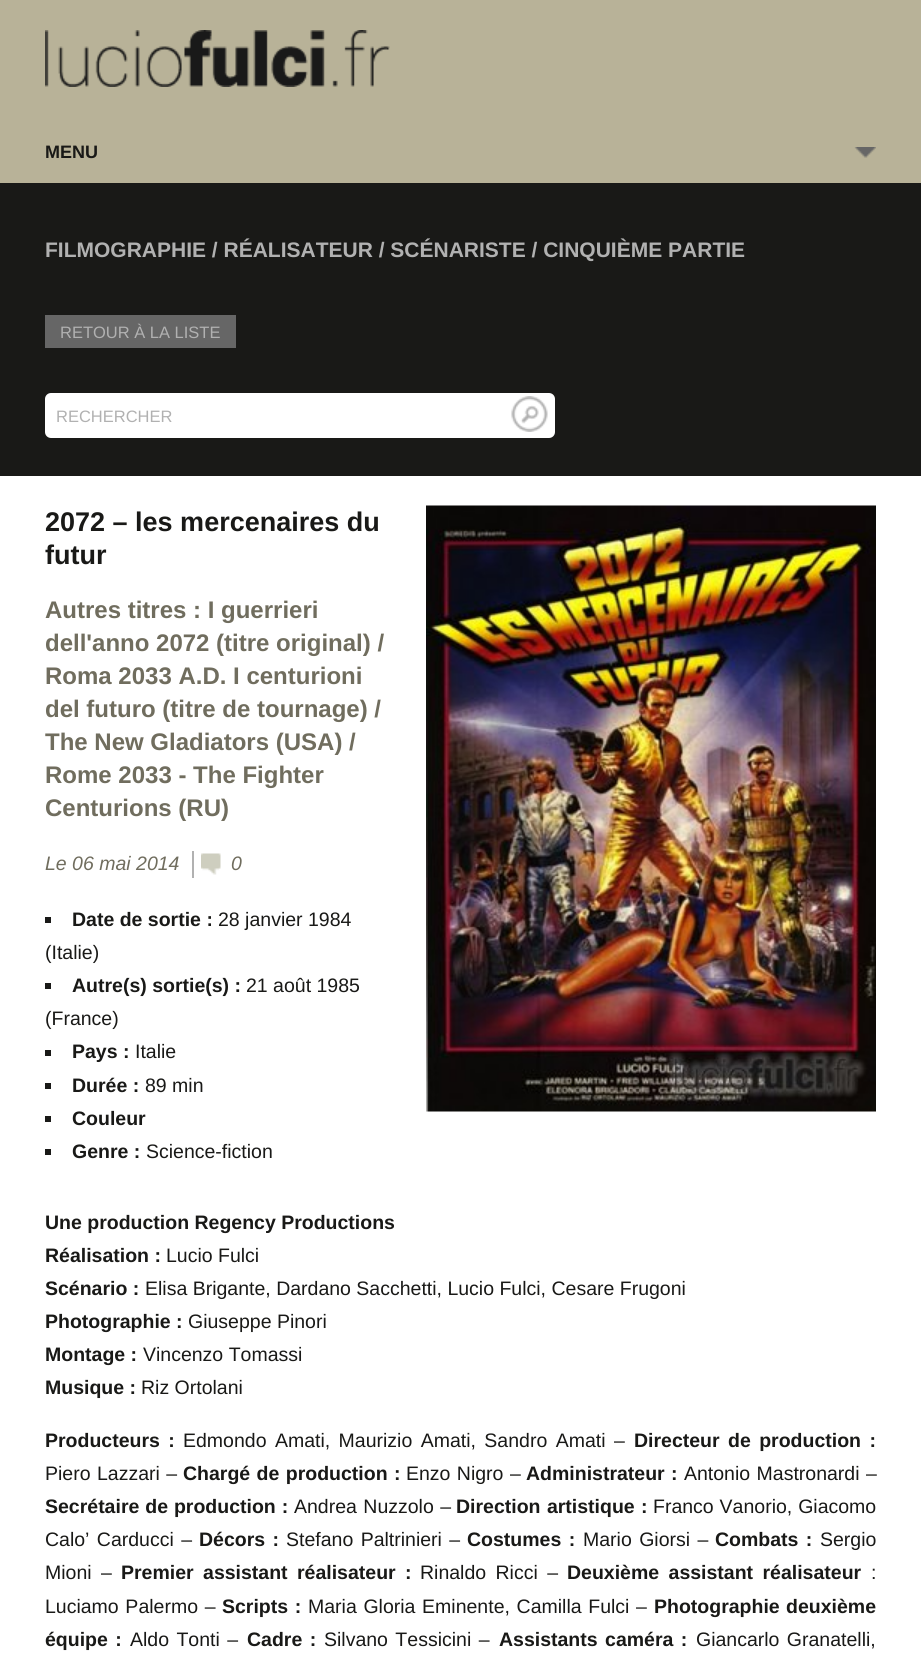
import math
import cairo

surface = cairo.ImageSurface(cairo.FORMAT_RGB24, 921, 1661)
c = cairo.Context(surface)
options = cairo.FontOptions()
options.set_hint_metrics(cairo.HINT_METRICS_OFF)
options.set_hint_style(cairo.HINT_STYLE_NONE)
c.set_font_options(options)
c.set_miter_limit(4)
def C(code):
 c.set_source_rgb(*(v / 255 for v in bytes.fromhex(code[-6:])))
def F(family, size, italic, bold):
 c.select_font_face(family, cairo.FONT_SLANT_ITALIC if italic else cairo.FONT_SLANT_NORMAL, cairo.FONT_WEIGHT_BOLD if bold else cairo.FONT_WEIGHT_NORMAL)
 c.set_font_size(size)
def T(x, y, s):
 c.move_to(x, y)
 c.show_text(s)
def L(x, y, s, letter, word):
 c.move_to(x, y)
 for ch in s:
  c.show_text(ch)
  c.rel_move_to(letter + word * (ch == ' '), 0)
def R(x, y, w, h):
 c.rectangle(x, y, w, h)
 c.fill()
def Q(x, y, w, h, r):
 c.new_sub_path()
 for i, (u, v) in enumerate([(x + w - r, y + h - r), (x + r, y + h - r), (x + r, y + r), (x + w - r, y + r)]):
  c.arc(u, v, r, i * math.pi / 2, (i + 1) * math.pi / 2)
 c.close_path()
def I(path, x, y, w, h):
 c.save()
 c.set_source_surface(cairo.ImageSurface.create_from_png(path), x, y)
 c.rectangle(x, y, w, h)
 c.fill()
 c.restore()
C('ffffff')
c.paint()
C('b8b298')
R(0,0,921,183)
I('1.png',45,30,345,57)
I('2.png',854,147,22,11)
F('Liberation Sans',18,0,1)
C('191917')
T(45,158,'MENU')
R(0,183,921,293)
F('Liberation Sans',21,0,1)
C('b1b1b1')
T(45,257,'FILMOGRAPHIE / RÉALISATEUR / SCÉNARISTE / CINQUIÈME PARTIE')
C('666666')
R(45,315,191,33)
F('Liberation Sans',16.5,0,0)
C('b1b1b1')
T(60,338,'RETOUR À LA LISTE')
C('ffffff')
Q(45,393,510,45,6)
c.fill()
C('b1b1b1')
T(56,422,'RECHERCHER')
I('3.png',511,396,37,36)
F('Liberation Sans',27,0,1)
C('191917')
T(45,531,'2072 – les mercenaires du')
T(45,564,'futur')
I('4.png',426,505,450,607)
F('Liberation Sans',24,0,1)
C('706d5e')
T(45,618,'Autres titres : I guerrieri')
T(45,651,'dell\'anno 2072 (titre original) /')
T(45,684,'Roma 2033 A.D. I centurioni')
T(45,717,'del futuro (titre de tournage) /')
T(45,750,'The New Gladiators (USA) /')
T(45,783,'Rome 2033 - The Fighter')
T(45,816,'Centurions (RU)')
F('Liberation Sans',19.5,1,0)
T(45,870,'Le 06 mai 2014')
C('b1b1b1')
R(192,851,2,27)
I('5.png',201,853,20,22)
C('706d5e')
T(231,870,'0')
C('191917')
R(45,917,6,6)
F('Liberation Sans',19.5,0,1)
T(72,926,'Date de sortie :')
F('Liberation Sans',19.5,0,0)
T(218,926,'28 janvier 1984')
T(45,959,'(Italie)')
R(45,983,6,6)
F('Liberation Sans',19.5,0,1)
T(72,992,'Autre(s) sortie(s) :')
F('Liberation Sans',19.5,0,0)
T(246,992,'21 août 1985')
T(45,1025,'(France)')
R(45,1050,6,6)
F('Liberation Sans',19.5,0,1)
T(72,1058,'Pays :')
F('Liberation Sans',19.5,0,0)
T(135,1058,'Italie')
R(45,1083,6,6)
F('Liberation Sans',19.5,0,1)
T(72,1092,'Durée :')
F('Liberation Sans',19.5,0,0)
T(145,1092,'89 min')
R(45,1116,6,6)
F('Liberation Sans',19.5,0,1)
T(72,1125,'Couleur')
R(45,1149,6,6)
T(72,1158,'Genre :')
F('Liberation Sans',19.5,0,0)
T(146,1158,'Science-fiction')
F('Liberation Sans',19.5,0,1)
T(45,1229,'Une production Regency Productions')
T(45,1262,'Réalisation :')
F('Liberation Sans',19.5,0,0)
T(166,1262,'Lucio Fulci')
F('Liberation Sans',19.5,0,1)
T(45,1295,'Scénario :')
F('Liberation Sans',19.5,0,0)
T(145,1295,'Elisa Brigante, Dardano Sacchetti, Lucio Fulci, Cesare Frugoni')
F('Liberation Sans',19.5,0,1)
T(45,1328,'Photographie :')
F('Liberation Sans',19.5,0,0)
T(188,1328,'Giuseppe Pinori')
F('Liberation Sans',19.5,0,1)
T(45,1361,'Montage :')
F('Liberation Sans',19.5,0,0)
T(143,1361,'Vincenzo Tomassi')
F('Liberation Sans',19.5,0,1)
T(45,1394,'Musique :')
F('Liberation Sans',19.5,0,0)
T(141,1394,'Riz Ortolani')
F('Liberation Sans',19.5,0,1)
L(45,1447,'Producteurs :',0,3)
F('Liberation Sans',19.5,0,0)
L(183,1447,'Edmondo Amati, Maurizio Amati, Sandro Amati –',0,3)
F('Liberation Sans',19.5,0,1)
L(634,1447,'Directeur de production :',0,3)
F('Liberation Sans',19.5,0,0)
L(45,1480,'Piero Lazzari –',0,1)
F('Liberation Sans',19.5,0,1)
L(183,1480,'Chargé de production :',0,1)
F('Liberation Sans',19.5,0,0)
L(406,1480,'Enzo Nigro –',0,1)
F('Liberation Sans',19.5,0,1)
L(526,1480,'Administrateur :',0,1)
F('Liberation Sans',19.5,0,0)
L(684,1480,'Antonio Mastronardi –',0,1)
F('Liberation Sans',19.5,0,1)
L(45,1513,'Secrétaire de production :',0,.5)
F('Liberation Sans',19.5,0,0)
L(294,1513,'Andrea Nuzzolo –',0,1)
F('Liberation Sans',19.5,0,1)
L(456,1513,'Direction artistique :',0,1)
F('Liberation Sans',19.5,0,0)
L(653,1513,'Franco Vanorio, Giacomo',0,.5)
L(45,1546,'Calo’ Carducci –',0,2)
F('Liberation Sans',19.5,0,1)
L(199,1546,'Décors :',0,2)
F('Liberation Sans',19.5,0,0)
L(286,1546,'Stefano Paltrinieri –',0,2)
F('Liberation Sans',19.5,0,1)
L(467,1546,'Costumes :',0,2)
F('Liberation Sans',19.5,0,0)
L(583,1546,'Mario Giorsi –',0,2)
F('Liberation Sans',19.5,0,1)
L(715,1546,'Combats :',0,2)
F('Liberation Sans',19.5,0,0)
T(820,1546,'Sergio')
L(45,1579,'Mioni –',0,4)
F('Liberation Sans',19.5,0,1)
L(121,1579,'Premier assistant réalisateur :',0,4)
F('Liberation Sans',19.5,0,0)
L(420,1579,'Rinaldo Ricci –',0,4)
F('Liberation Sans',19.5,0,1)
L(567,1579,'Deuxième assistant réalisateur',0,4)
F('Liberation Sans',19.5,0,0)
T(871,1579,':')
L(45,1613,'Luciamo Palermo –',0,1.25)
F('Liberation Sans',19.5,0,1)
L(222,1613,'Scripts :',0,1.25)
F('Liberation Sans',19.5,0,0)
L(308,1613,'Maria Gloria Eminente, Camilla Fulci –',0,1.25)
F('Liberation Sans',19.5,0,1)
L(654,1613,'Photographie deuxième',0,1)
L(45,1646,'équipe :',0,2)
F('Liberation Sans',19.5,0,0)
L(130,1646,'Aldo Tonti –',0,2)
F('Liberation Sans',19.5,0,1)
L(247,1646,'Cadre :',0,2)
F('Liberation Sans',19.5,0,0)
L(324,1646,'Silvano Tessicini –',0,2)
F('Liberation Sans',19.5,0,1)
L(499,1646,'Assistants caméra :',0,2)
F('Liberation Sans',19.5,0,0)
L(696,1646,'Giancarlo Granatelli,',0,2)
surface.write_to_png('o.png')
